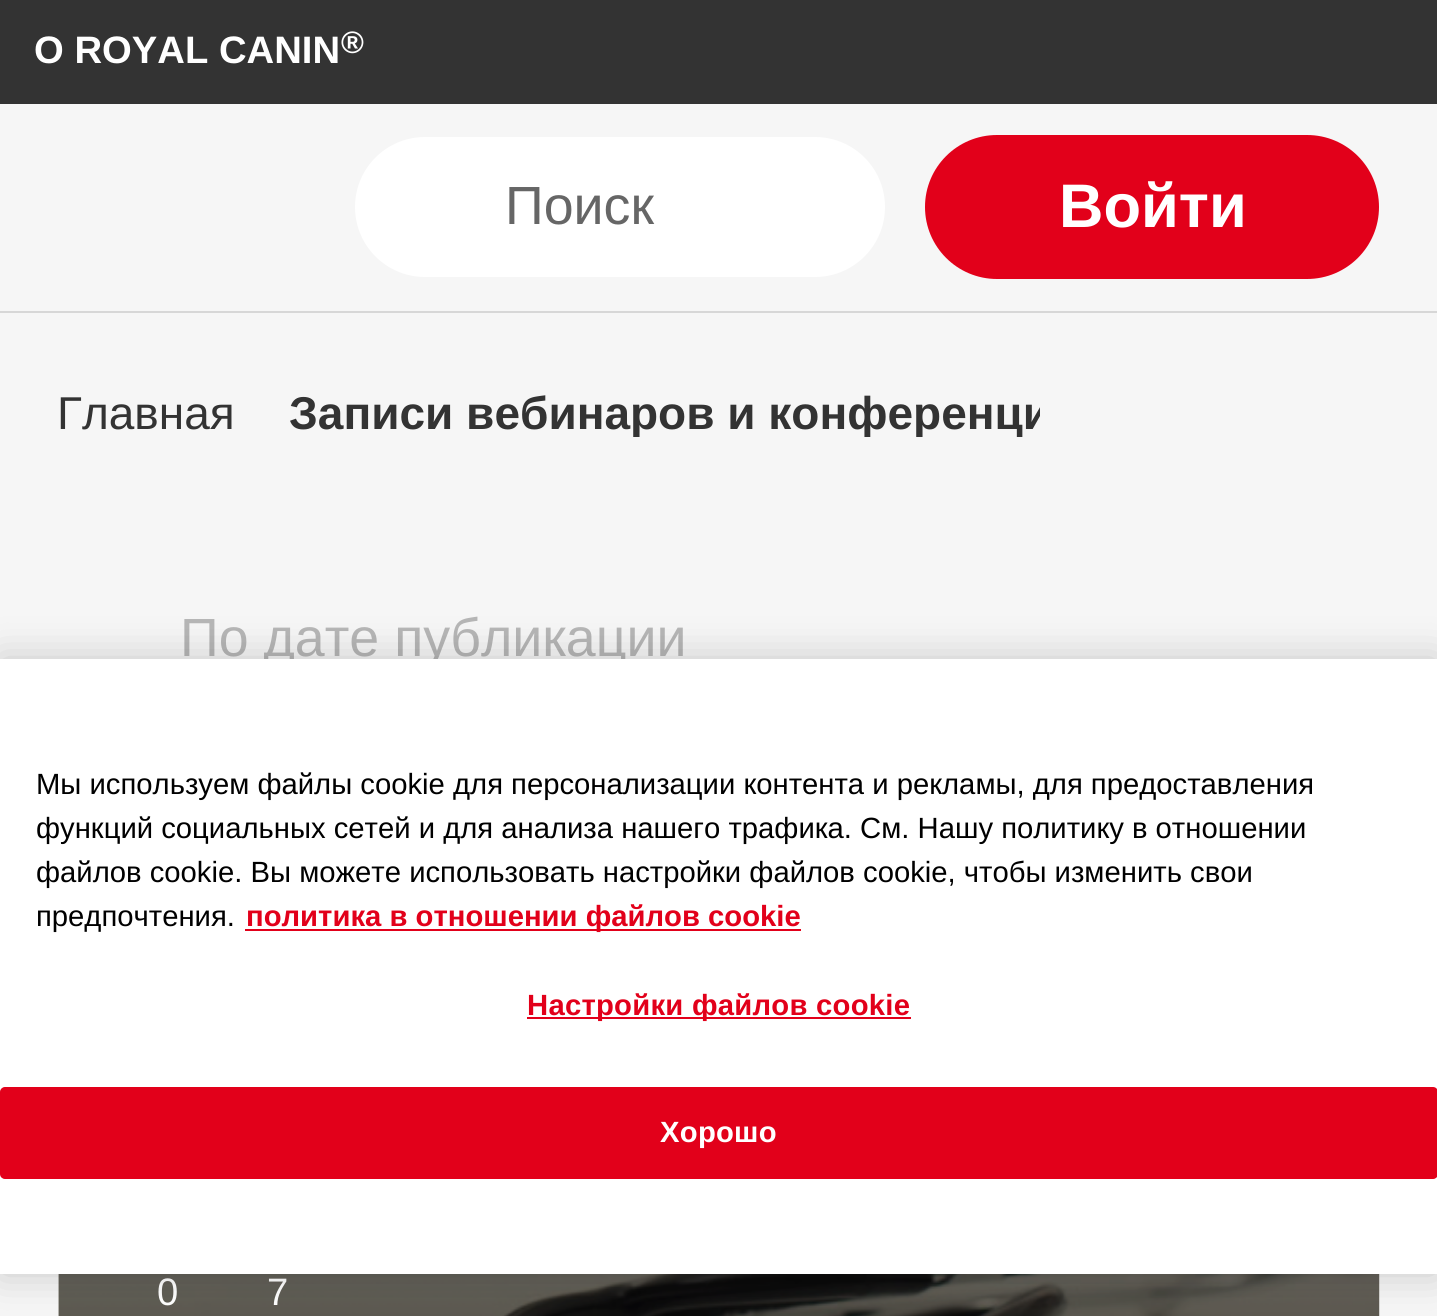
import math
import cairo

surface = cairo.ImageSurface(cairo.FORMAT_RGB24, 1437, 1316)
c = cairo.Context(surface)
options = cairo.FontOptions()
options.set_hint_metrics(cairo.HINT_METRICS_OFF)
options.set_hint_style(cairo.HINT_STYLE_NONE)
c.set_font_options(options)
c.set_miter_limit(4)
def C(code):
 c.set_source_rgb(*(v / 255 for v in bytes.fromhex(code[-6:])))
def F(family, size, italic, bold):
 c.select_font_face(family, cairo.FONT_SLANT_ITALIC if italic else cairo.FONT_SLANT_NORMAL, cairo.FONT_WEIGHT_BOLD if bold else cairo.FONT_WEIGHT_NORMAL)
 c.set_font_size(size)
def T(x, y, s):
 c.move_to(x, y)
 c.show_text(s)
def L(x, y, s, letter, word):
 c.move_to(x, y)
 for ch in s:
  c.show_text(ch)
  c.rel_move_to(letter + word * (ch == ' '), 0)
def R(x, y, w, h):
 c.rectangle(x, y, w, h)
 c.fill()
def Q(x, y, w, h, r):
 c.new_sub_path()
 for i, (u, v) in enumerate([(x + w - r, y + h - r), (x + r, y + h - r), (x + r, y + r), (x + w - r, y + r)]):
  c.arc(u, v, r, i * math.pi / 2, (i + 1) * math.pi / 2)
 c.close_path()
def S(x, y, w, h, r, blur, alpha):
 c.push_group_with_content(cairo.CONTENT_ALPHA)
 c.set_operator(cairo.OPERATOR_SOURCE)
 for i in range(15, -16, -2):
  e = blur * i / 6
  if min(w, h) + 2 * e > 0:
   c.set_source_rgba(0, 0, 0, alpha * math.erfc((i - 1) / 8.5) / 2)
   Q(x - e, y - e, w + 2 * e, h + 2 * e, max(0, min(r + e + blur * .6, min(w, h) / 2 + e)))
   c.fill()
 c.mask(c.pop_group())
def I(path, x, y, w, h):
 c.save()
 c.set_source_surface(cairo.ImageSurface.create_from_png(path), x, y)
 c.rectangle(x, y, w, h)
 c.fill()
 c.restore()
C('f6f6f6')
c.paint()
C('333333')
R(0,0,1437,104)
F('Liberation Sans',38.25,0,1)
C('ffffff')
T(34,63,'О ROYAL CANIN')
F('Liberation Sans',31,0,1)
T(341,53,'®')
C('d7d7d7')
R(0,311,1437,2)
C('ffffff')
Q(354,136,532,142,71)
c.fill_preserve()
C('f6f6f6')
c.stroke()
F('Liberation Sans',53.75,0,0)
C('666666')
T(505,224,'Поиск')
C('e2001a')
Q(925,135,454,144,72)
c.fill()
F('Liberation Sans',61.5,0,1)
C('ffffff')
T(1059,227,'Войти')
F('Liberation Sans',46,0,0)
C('333333')
T(57,429,'Главная')
c.save()
c.rectangle(288,392,752,45)
c.clip()
F('Liberation Sans',46,0,1)
T(289,429,'Записи вебинаров и конференци')
c.restore()
F('Liberation Sans',53.75,0,0)
C('b6b6b6')
T(180,656,'По дате публикации')
I('1.png',58,1274,1322,42)
F('Liberation Sans',38.25,0,0)
C('ffffff')
T(157,1305,'0')
T(267,1305,'7')
C('000000')
S(0,659,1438,615,0,20,.2)
C('ffffff')
R(0,659,1437,615)
F('Liberation Sans',29.25,0,0)
C('000000')
T(36,794,'Мы используем файлы cookie для персонализации контента и рекламы, для предоставления')
T(36,838,'функций социальных сетей и для анализа нашего трафика. См. Нашу политику в отношении')
T(36,882,'файлов cookie. Вы можете использовать настройки файлов cookie, чтобы изменить свои')
T(36,926,'предпочтения.')
C('e2001a')
R(245,929,556,2)
F('Liberation Sans',29.25,0,1)
T(246,926,'политика в отношении файлов cookie')
R(527,1017,384,2)
L(527,1015,'Настройки файлов cookie',.25,0)
Q(1,1088,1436,90,4)
c.fill_preserve()
c.stroke()
C('ffffff')
L(660,1142,'Хорошо',.25,0)
surface.write_to_png('o.png')
